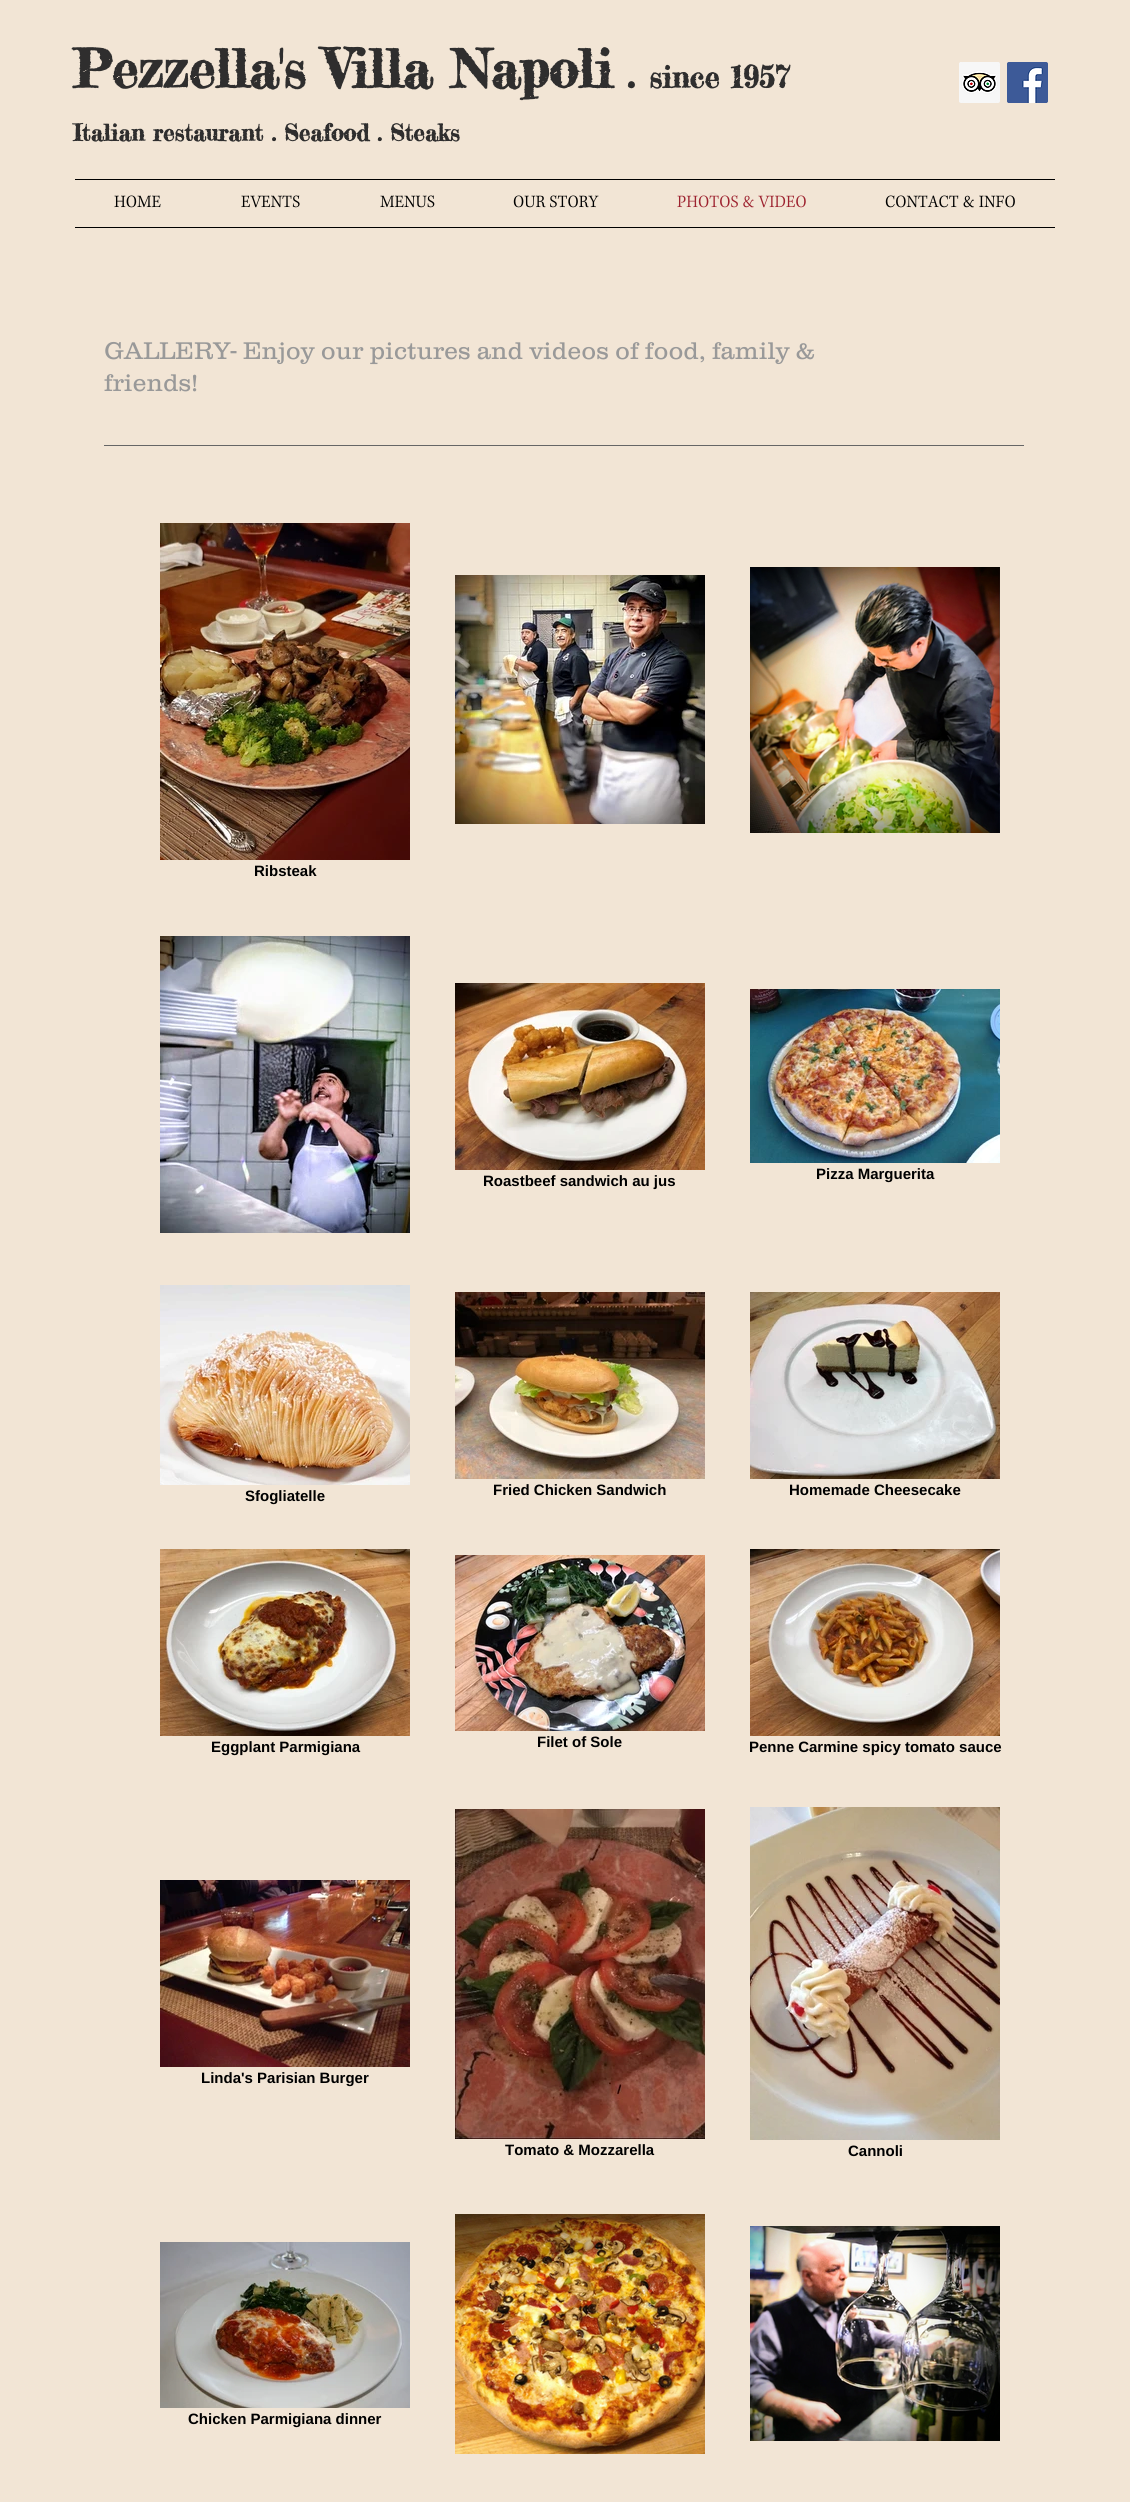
import math
import cairo

surface = cairo.ImageSurface(cairo.FORMAT_RGB24, 1130, 2502)
c = cairo.Context(surface)
options = cairo.FontOptions()
options.set_hint_metrics(cairo.HINT_METRICS_OFF)
options.set_hint_style(cairo.HINT_STYLE_NONE)
c.set_font_options(options)
c.set_miter_limit(4)
def C(code):
 c.set_source_rgb(*(v / 255 for v in bytes.fromhex(code[-6:])))
def F(family, size, italic, bold):
 c.select_font_face(family, cairo.FONT_SLANT_ITALIC if italic else cairo.FONT_SLANT_NORMAL, cairo.FONT_WEIGHT_BOLD if bold else cairo.FONT_WEIGHT_NORMAL)
 c.set_font_size(size)
def T(x, y, s):
 c.move_to(x, y)
 c.show_text(s)
def R(x, y, w, h):
 c.rectangle(x, y, w, h)
 c.fill()
def I(path, x, y, w, h):
 c.save()
 c.set_source_surface(cairo.ImageSurface.create_from_png(path), x, y)
 c.rectangle(x, y, w, h)
 c.fill()
 c.restore()
C('f2e5d5')
c.paint()
F('Fredericka the Great',53,0,1)
C('2f2e2e')
T(73,88,'Pezzella\'s Villa Napoli')
F('Fredericka the Great',40,0,1)
T(627,88,'.')
F('Fredericka the Great',30,0,1)
T(649,88,'since 1957')
F('Fredericka the Great',23,0,1)
T(73,141,'Italian restaurant . Seafood . Steaks')
I('1.png',959,62,41,41)
I('2.png',1007,62,41,41)
C('000000')
R(75,179,980,1)
R(75,227,980,1)
I('3.png',114,195,47,13)
I('4.png',241,195,59,13)
I('5.png',380,195,55,13)
I('6.png',513,195,86,13)
I('7.png',677,195,129,13)
I('8.png',885,195,130,13)
F('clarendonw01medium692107 Light',25,0,0)
C('999999')
T(104,359,'GALLERY- Enjoy our pictures and videos of food, family &')
T(104,391,'friends!')
C('666666')
R(104,445,920,1)
I('9.png',455,575,250,249)
I('10.png',750,567,250,266)
I('11.png',160,523,250,337)
F('Liberation Sans',15,0,1)
C('000000')
T(254,876,'Ribsteak')
I('12.png',160,936,250,297)
I('13.png',455,983,250,187)
T(483,1186,'Roastbeef sandwich au jus')
I('14.png',750,989,250,174)
T(816,1179,'Pizza Marguerita')
I('15.png',160,1285,250,200)
T(245,1501,'Sfogliatelle')
I('16.png',455,1292,250,187)
T(493,1495,'Fried Chicken Sandwich')
I('17.png',750,1292,250,187)
T(789,1495,'Homemade Cheesecake')
I('18.png',160,1549,250,187)
T(211,1752,'Eggplant Parmigiana')
I('19.png',455,1555,250,176)
T(537,1747,'Filet of Sole')
I('20.png',750,1549,250,187)
T(749,1752,'Penne Carmine spicy tomato sauce')
I('21.png',160,1880,250,187)
T(201,2083,'Linda\'s Parisian Burger')
I('22.png',455,1809,250,330)
T(505,2155,'Tomato & Mozzarella')
I('23.png',750,1807,250,333)
T(848,2156,'Cannoli')
I('24.png',160,2242,250,166)
T(188,2424,'Chicken Parmigiana dinner')
I('25.png',455,2214,250,240)
I('26.png',750,2226,250,215)
surface.write_to_png('o.png')
